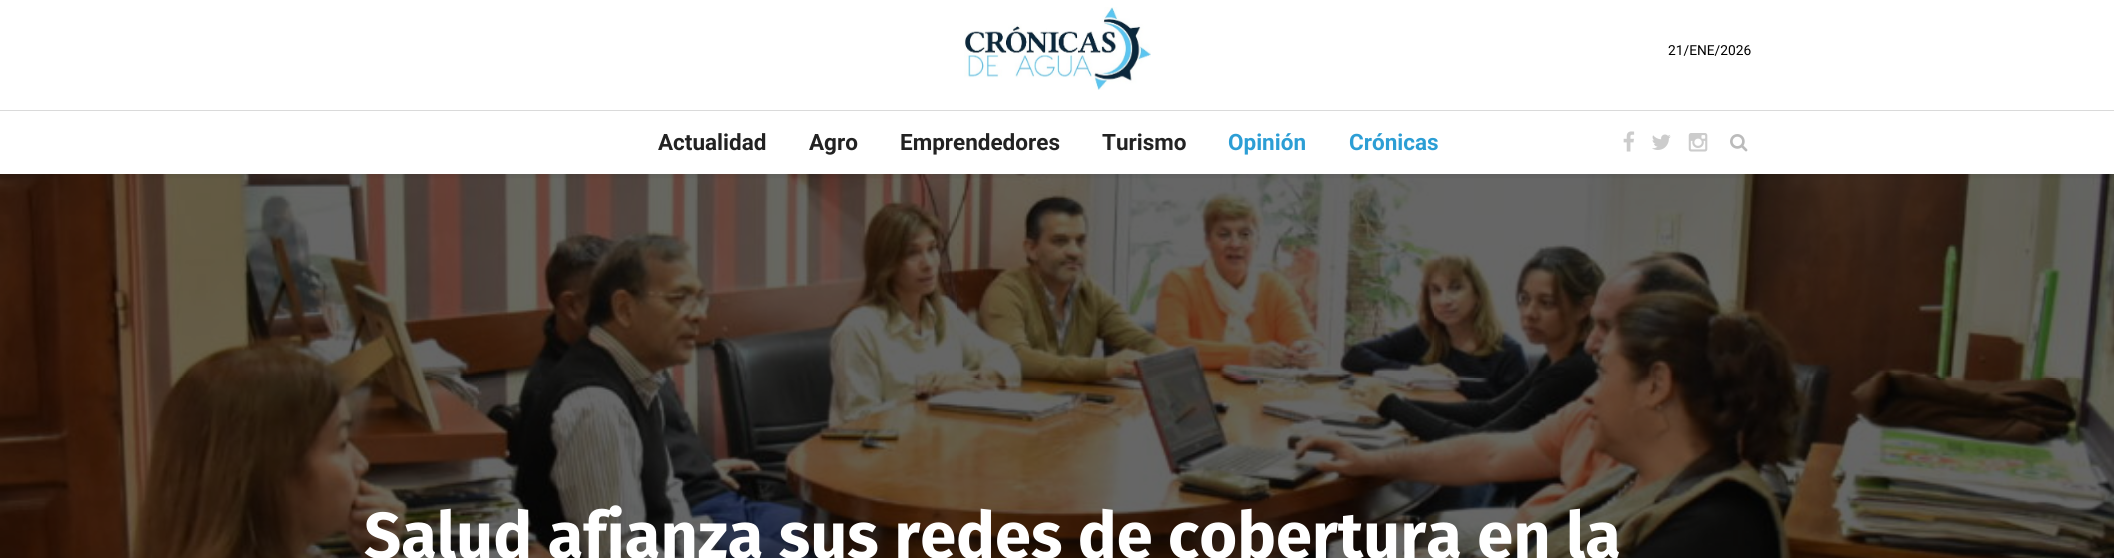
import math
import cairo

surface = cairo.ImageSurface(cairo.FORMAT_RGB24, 2114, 558)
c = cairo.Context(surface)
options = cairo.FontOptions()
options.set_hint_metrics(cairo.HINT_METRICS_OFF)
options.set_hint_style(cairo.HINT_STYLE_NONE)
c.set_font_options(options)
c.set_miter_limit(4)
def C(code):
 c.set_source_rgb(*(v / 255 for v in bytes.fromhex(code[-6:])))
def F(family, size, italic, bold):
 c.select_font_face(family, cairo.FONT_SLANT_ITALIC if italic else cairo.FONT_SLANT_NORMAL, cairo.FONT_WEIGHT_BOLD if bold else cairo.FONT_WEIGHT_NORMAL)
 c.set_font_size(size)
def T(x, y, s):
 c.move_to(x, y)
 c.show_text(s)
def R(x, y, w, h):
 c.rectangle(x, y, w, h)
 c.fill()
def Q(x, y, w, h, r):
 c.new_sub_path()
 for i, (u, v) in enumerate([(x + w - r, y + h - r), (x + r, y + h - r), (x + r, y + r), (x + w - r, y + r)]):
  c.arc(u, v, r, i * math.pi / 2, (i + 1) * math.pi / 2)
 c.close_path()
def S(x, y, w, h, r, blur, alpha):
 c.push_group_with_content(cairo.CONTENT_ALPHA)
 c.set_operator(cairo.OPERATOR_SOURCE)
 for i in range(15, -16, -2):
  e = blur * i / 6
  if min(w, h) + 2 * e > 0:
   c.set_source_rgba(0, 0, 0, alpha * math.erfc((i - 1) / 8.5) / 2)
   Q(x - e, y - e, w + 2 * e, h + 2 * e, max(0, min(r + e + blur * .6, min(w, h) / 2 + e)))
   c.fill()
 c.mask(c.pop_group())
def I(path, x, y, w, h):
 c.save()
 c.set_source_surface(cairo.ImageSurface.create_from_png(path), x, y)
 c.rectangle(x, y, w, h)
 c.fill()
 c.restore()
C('ffffff')
c.paint()
C('dadada')
R(0,110,2114,1)
I('1.png',964,7,187,83)
F('Roboto',13.75,0,0)
C('000000')
T(1668,55,'21/ENE/2026')
I('6.png',0,174,2114,384)
C('000000')
S(0,115,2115,63,0,1,.05)
C('ffffff')
R(0,114,2114,60)
F('Roboto',22.5,0,1)
C('222222')
T(658,150,'Actualidad')
T(809,150,'Agro')
T(900,150,'Emprendedores')
T(1102,150,'Turismo')
C('2c9ed5')
T(1228,150,'Opinión')
T(1349,150,'Crónicas')
I('2.png',1623,131,12,21)
I('3.png',1652,134,19,16)
I('4.png',1688,133,20,19)
I('5.png',1730,134,18,18)
F('Fira Sans',65,0,1)
C('ffffff')
T(364,558,'Salud afianza sus redes de cobertura en la')
surface.write_to_png('o.png')
